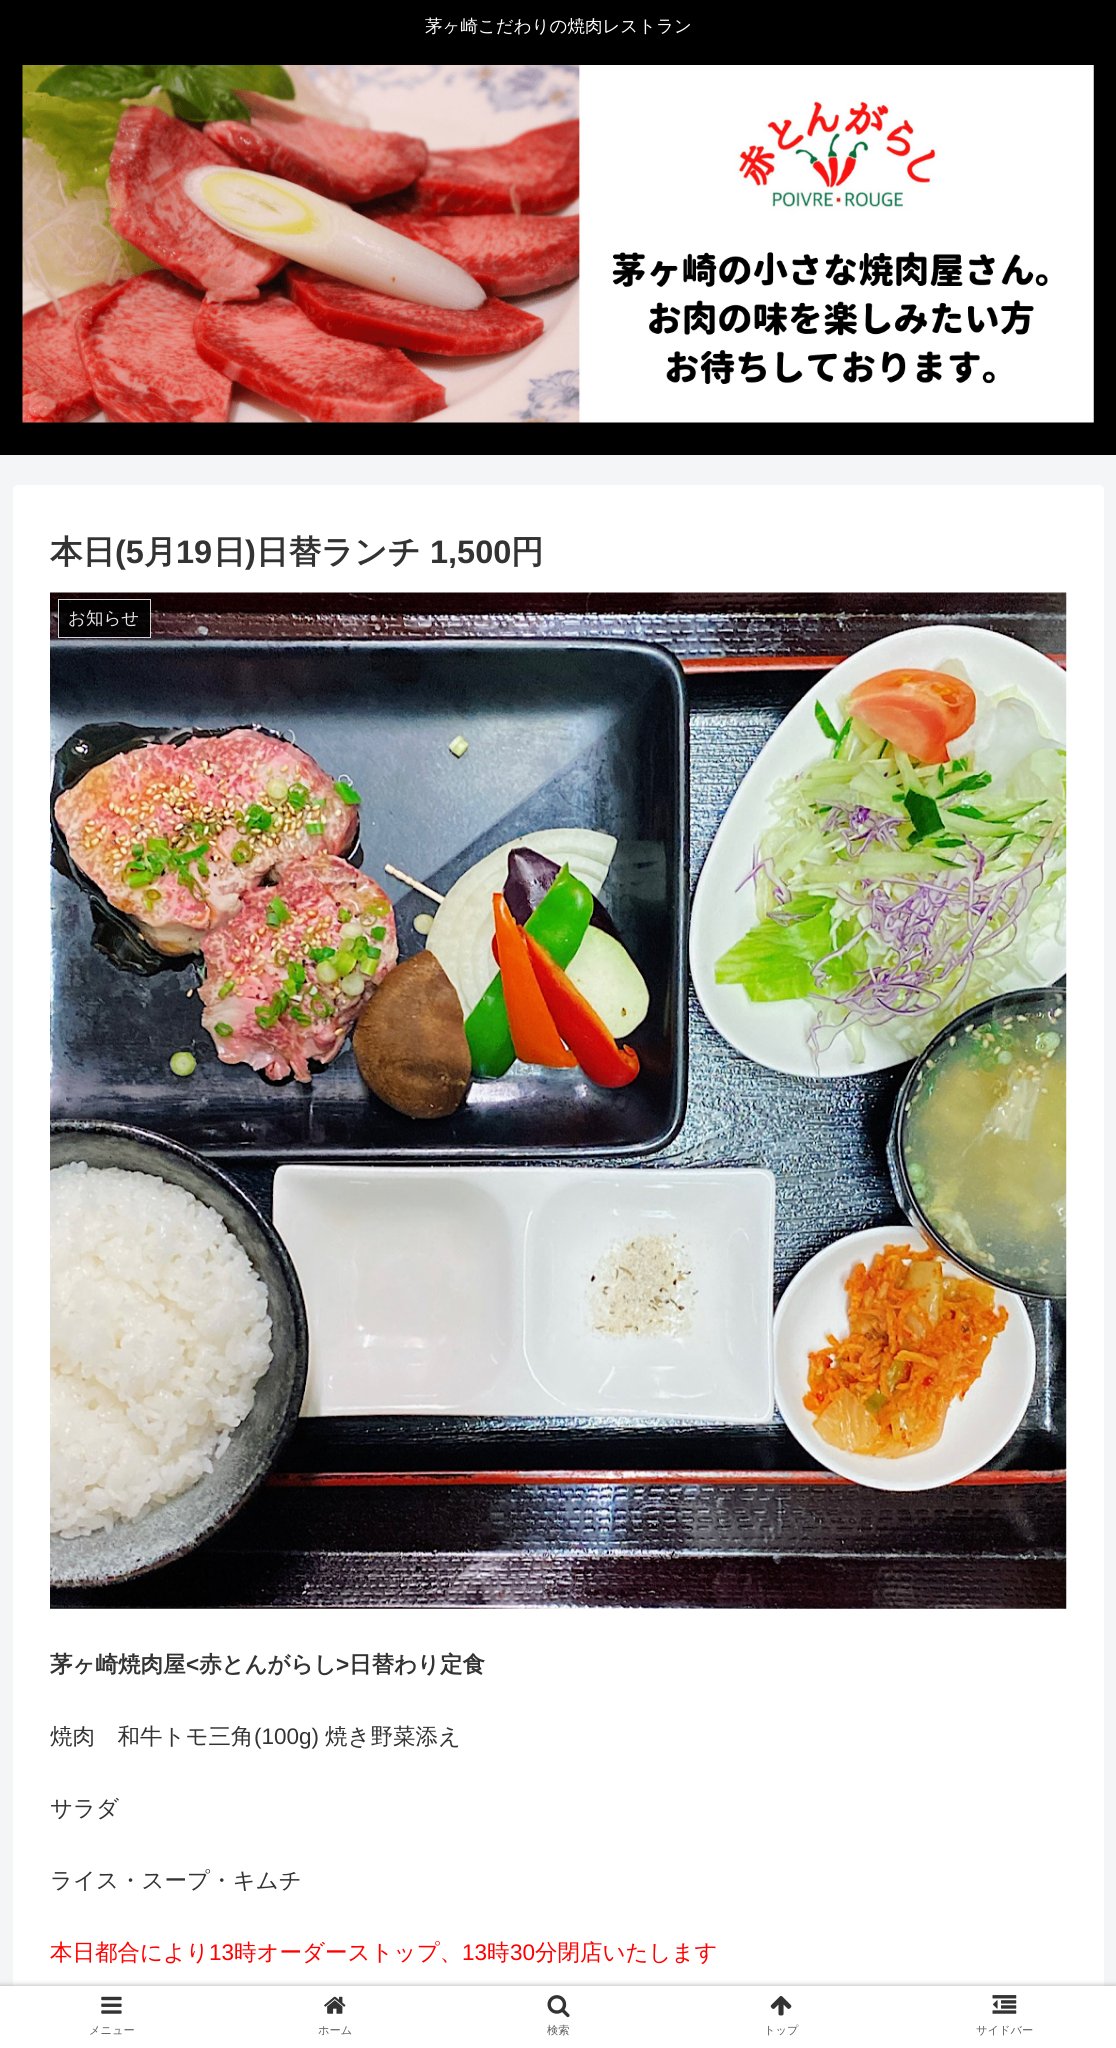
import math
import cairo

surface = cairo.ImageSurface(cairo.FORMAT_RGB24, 1116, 2048)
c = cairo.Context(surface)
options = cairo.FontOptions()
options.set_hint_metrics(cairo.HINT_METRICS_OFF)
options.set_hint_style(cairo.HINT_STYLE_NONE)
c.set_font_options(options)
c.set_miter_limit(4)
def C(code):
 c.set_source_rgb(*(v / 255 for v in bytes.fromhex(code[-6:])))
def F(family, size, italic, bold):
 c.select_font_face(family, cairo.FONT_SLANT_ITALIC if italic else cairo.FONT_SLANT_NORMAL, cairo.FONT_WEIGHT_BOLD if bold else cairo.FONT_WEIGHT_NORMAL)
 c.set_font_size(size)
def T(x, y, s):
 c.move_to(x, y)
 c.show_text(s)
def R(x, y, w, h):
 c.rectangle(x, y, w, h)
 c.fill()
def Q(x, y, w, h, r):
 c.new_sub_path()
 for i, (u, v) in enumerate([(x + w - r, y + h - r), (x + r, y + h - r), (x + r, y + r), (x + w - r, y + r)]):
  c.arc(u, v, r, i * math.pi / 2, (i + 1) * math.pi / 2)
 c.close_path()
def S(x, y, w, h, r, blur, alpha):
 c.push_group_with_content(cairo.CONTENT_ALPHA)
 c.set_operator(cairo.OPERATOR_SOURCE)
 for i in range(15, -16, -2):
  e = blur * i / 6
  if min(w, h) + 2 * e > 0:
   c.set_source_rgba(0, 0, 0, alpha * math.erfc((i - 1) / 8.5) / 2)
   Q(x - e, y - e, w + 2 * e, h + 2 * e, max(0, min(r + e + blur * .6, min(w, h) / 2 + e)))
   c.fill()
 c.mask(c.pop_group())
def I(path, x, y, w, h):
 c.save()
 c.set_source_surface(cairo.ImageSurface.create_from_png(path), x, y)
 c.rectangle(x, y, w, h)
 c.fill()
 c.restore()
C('f4f5f7')
c.paint()
C('000000')
R(0,0,1116,455)
F('WenQuanYi Zen Hei Medium',17.5,0,0)
C('ffffff')
T(425,32,'茅ヶ崎こだわりの焼肉レストラン')
I('1.png',22,65,1072,358)
Q(13,485,1091,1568,5)
c.fill()
F('WenQuanYi Zen Hei',32.5,0,1)
C('333333')
T(50,563,'本日')
F('Liberation Sans',32.5,0,1)
T(115,563,'(5')
F('WenQuanYi Zen Hei',32.5,0,1)
T(144,563,'月')
F('Liberation Sans',32.5,0,1)
T(176,563,'19')
F('WenQuanYi Zen Hei',32.5,0,1)
T(213,563,'日')
F('Liberation Sans',32.5,0,1)
T(245,563,')')
F('WenQuanYi Zen Hei',32.5,0,1)
T(256,563,'日替ランチ')
F('Liberation Sans',32.5,0,1)
T(430,563,'1,500')
F('WenQuanYi Zen Hei',32.5,0,1)
T(511,563,'円')
I('2.png',50,592,1017,1017)
c.set_source_rgba(0,0,0,0.9)
R(58,599,93,39)
c.rectangle(58.5,599.5,92,38)
c.set_source_rgba(0.933,0.933,0.933,0.9)
c.set_line_width(1)
c.stroke()
F('WenQuanYi Zen Hei Medium',17.5,0,0)
C('e6e6e6')
T(68,624,'お知らせ')
F('WenQuanYi Zen Hei',22.5,0,1)
C('333333')
T(50,1672,'茅ヶ崎焼肉屋')
F('Liberation Sans',22.5,0,1)
T(186,1672,'<')
F('WenQuanYi Zen Hei',22.5,0,1)
T(199,1672,'赤とんがらし')
F('Liberation Sans',22.5,0,1)
T(336,1672,'>')
F('WenQuanYi Zen Hei',22.5,0,1)
T(349,1672,'日替わり定食')
F('WenQuanYi Zen Hei Medium',22.5,0,0)
T(50,1744,'焼肉　和牛トモ三角')
F('Liberation Sans',22.5,0,0)
T(254,1744,'(100g)')
F('WenQuanYi Zen Hei Medium',22.5,0,0)
T(325,1744,'焼き野菜添え')
T(50,1816,'サラダ')
T(50,1888,'ライス・スープ・キムチ')
C('ff0000')
T(50,1960,'本日都合により')
F('Liberation Sans',22.5,0,0)
T(209,1960,'13')
F('WenQuanYi Zen Hei Medium',22.5,0,0)
T(234,1960,'時オーダーストップ、')
F('Liberation Sans',22.5,0,0)
T(462,1960,'13')
F('WenQuanYi Zen Hei Medium',22.5,0,0)
T(487,1960,'時')
F('Liberation Sans',22.5,0,0)
T(510,1960,'30')
F('WenQuanYi Zen Hei Medium',22.5,0,0)
T(535,1960,'分閉店いたします')
C('a9a9a9')
S(0,1986,1116,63,0,3,1)
C('ffffff')
R(0,1986,1116,62)
I('3.png',101,1996,21,18)
F('WenQuanYi Zen Hei Medium',11.25,0,0)
C('5c5c5c')
T(89,2034,'メニュー')
I('4.png',324,1996,22,18)
T(318,2034,'ホーム')
I('5.png',547,1995,23,23)
T(547,2034,'検索')
I('6.png',770,1996,22,20)
T(764,2034,'トップ')
I('7.png',992,1995,25,19)
T(976,2034,'サイドバー')
surface.write_to_png('o.png')
